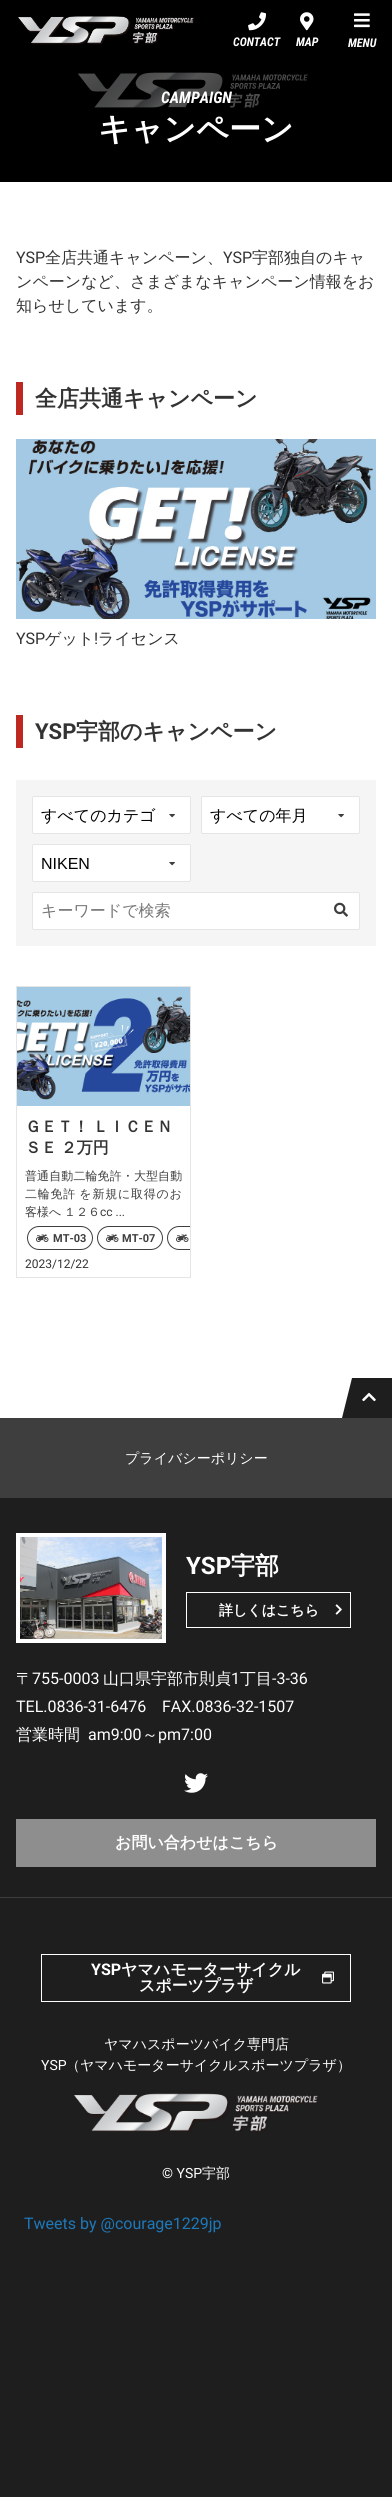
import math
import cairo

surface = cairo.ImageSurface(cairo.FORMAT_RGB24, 392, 2497)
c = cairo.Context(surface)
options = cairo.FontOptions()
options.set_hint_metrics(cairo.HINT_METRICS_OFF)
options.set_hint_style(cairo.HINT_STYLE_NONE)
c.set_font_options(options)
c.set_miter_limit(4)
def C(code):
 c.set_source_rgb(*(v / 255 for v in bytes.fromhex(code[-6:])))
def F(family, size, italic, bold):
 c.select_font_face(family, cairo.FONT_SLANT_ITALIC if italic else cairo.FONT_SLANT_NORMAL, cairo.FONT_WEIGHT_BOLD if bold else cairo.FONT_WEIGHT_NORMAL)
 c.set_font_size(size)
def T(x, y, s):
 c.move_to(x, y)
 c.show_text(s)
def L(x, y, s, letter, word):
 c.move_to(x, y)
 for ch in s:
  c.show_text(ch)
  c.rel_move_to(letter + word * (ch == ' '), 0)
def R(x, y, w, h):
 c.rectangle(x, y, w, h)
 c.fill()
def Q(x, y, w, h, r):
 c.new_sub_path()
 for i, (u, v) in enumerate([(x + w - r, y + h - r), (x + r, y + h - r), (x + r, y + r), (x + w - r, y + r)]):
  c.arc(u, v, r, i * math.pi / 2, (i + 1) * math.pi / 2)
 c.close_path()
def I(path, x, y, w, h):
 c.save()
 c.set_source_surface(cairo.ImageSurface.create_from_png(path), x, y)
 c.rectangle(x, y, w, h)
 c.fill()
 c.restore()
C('1e1e1e')
c.paint()
C('ffffff')
R(0,182,392,1236)
I('5.png',0,0,392,182)
I('1.png',18,16,177,29)
I('2.png',248,12,18,19)
F('Roboto Condensed',12,1,1)
T(233,46,'CONTACT')
I('3.png',300,12,14,19)
T(296,46,'MAP')
I('4.png',354,13,16,15)
T(348,47,'MENU')
F('Roboto Condensed',16,1,1)
T(161,103,'CAMPAIGN')
F('WenQuanYi Zen Hei',32,0,1)
T(98,140,'キャンペーン')
F('Roboto',16,0,0)
C('333333')
T(16,263,'YSP')
F('WenQuanYi Zen Hei Medium',16,0,0)
T(45,263,'全店共通キャンペーン、')
F('Roboto',16,0,0)
T(223,263,'YSP')
F('WenQuanYi Zen Hei Medium',16,0,0)
T(252,263,'宇部独自のキャ')
T(16,287,'ンペーンなど、さまざまなキャンペーン情報をお')
T(16,311,'知らせしています。')
C('bd2821')
R(16,382,7,33)
F('WenQuanYi Zen Hei',22,0,1)
C('333333')
T(35,406,'全店共通キャンペーン')
I('6.png',16,439,360,180)
F('Roboto',16,0,0)
T(16,644,'YSP')
F('WenQuanYi Zen Hei Medium',16,0,0)
T(45,644,'ゲット')
F('Roboto',16,0,0)
T(94,644,'!')
F('WenQuanYi Zen Hei Medium',16,0,0)
T(98,644,'ライセンス')
C('bd2821')
R(16,715,7,33)
F('Roboto',22,0,1)
C('333333')
T(35,739,'YSP')
F('WenQuanYi Zen Hei',22,0,1)
T(76,739,'宇部のキャンペーン')
C('f5f5f5')
R(16,780,360,166)
C('ffffff')
Q(32.5,796.5,158,37,1.5)
c.fill_preserve()
C('e5e5e5')
c.set_line_width(1)
c.stroke()
F('WenQuanYi Zen Hei Medium',16,0,0)
C('000000')
T(41,821,'すべてのカテゴ')
I('7.png',169,814,6,4)
C('ffffff')
Q(201.5,796.5,158,37,1.5)
c.fill_preserve()
C('e5e5e5')
c.stroke()
C('000000')
T(210,821,'すべての年月')
I('7.png',338,814,6,4)
C('ffffff')
Q(32.5,844.5,158,37,1.5)
c.fill_preserve()
C('e5e5e5')
c.stroke()
F('Liberation Sans',16,0,0)
C('000000')
T(41,869,'NIKEN')
I('7.png',169,862,6,4)
C('ffffff')
Q(32.5,892.5,327,37,1.5)
c.fill_preserve()
C('e5e5e5')
c.stroke()
F('WenQuanYi Zen Hei Medium',16,0,0)
C('757575')
T(41,916,'キーワードで検索')
I('8.png',334,902,14,15)
c.rectangle(16.5,986.5,174,291)
C('e5e5e5')
c.stroke()
I('9.png',17,987,173,119)
F('WenQuanYi Zen Hei',16,0,1)
C('333333')
L(25,1132,'ＧＥＴ！ ＬＩＣＥＮ',0,-1)
L(25,1153,'ＳＥ ２万円',0,-1)
F('WenQuanYi Zen Hei Medium',12,0,0)
C('3e3e3e')
L(25,1180,'普通自動二輪免許・大型自動',.1,0)
L(25,1198,'二輪免許 を新規に取得のお',.75,-1)
T(25,1216,'客様へ')
T(64,1216,'１２６')
F('Roboto',12,0,0)
T(100,1216,'cc ...')
Q(27.5,1226.5,65,23,11.5)
c.stroke()
I('10.png',36,1234,13,8)
F('Roboto',11,0,1)
T(53,1242,'MT-03')
Q(97.5,1226.5,65,23,11.5)
c.stroke()
I('10.png',106,1234,13,8)
T(122,1242,'MT-07')
c.save()
c.rectangle(25,1221,165,32)
c.clip()
Q(167.5,1226.5,65,23,11.5)
c.stroke()
c.restore()
I('10.png',176,1234,13,8)
F('Roboto',12,0,0)
C('333333')
T(25,1268,'2023/12/22')
C('1e1e1e')
c.new_path()
c.move_to(392,1418)
c.line_to(342,1418)
c.line_to(352,1378)
c.line_to(392,1378)
c.close_path()
c.fill()
I('11.png',362,1392,14,10)
C('3e3e3e')
R(0,1418,392,80)
F('WenQuanYi Zen Hei Medium',14,0,0)
C('ffffff')
T(125,1463,'プライバシーポリシー')
c.rectangle(18,1535,146,106)
c.set_line_width(4)
c.stroke()
I('12.png',20,1537,142,102)
F('Roboto',24,0,1)
T(186,1574,'YSP')
F('WenQuanYi Zen Hei',24,0,1)
T(231,1574,'宇部')
c.rectangle(186.5,1592.5,164,35)
c.set_line_width(1)
c.stroke()
F('WenQuanYi Zen Hei',14,0,1)
T(219,1615,'詳しくはこちら')
I('13.png',335,1604,7,11)
F('WenQuanYi Zen Hei Medium',16,0,0)
T(16,1684,'〒')
F('Roboto',16,0,0)
T(32,1684,'755-0003')
F('WenQuanYi Zen Hei Medium',16,0,0)
T(103,1684,'山口県宇部市則貞')
F('Roboto',16,0,0)
T(231,1684,'1')
F('WenQuanYi Zen Hei Medium',16,0,0)
T(240,1684,'丁目')
F('Roboto',16,0,0)
T(272,1684,'-3-36')
T(16,1712,'TEL.0836-31-6476')
T(162,1712,'FAX.0836-32-1507')
F('WenQuanYi Zen Hei Medium',16,0,0)
T(16,1740,'営業時間')
F('Roboto',16,0,0)
T(88,1740,'am9:00')
F('WenQuanYi Zen Hei Medium',16,0,0)
T(142,1740,'～')
F('Roboto',16,0,0)
T(158,1740,'pm7:00')
I('14.png',184,1773,24,20)
C('8e8e8e')
R(16,1819,360,48)
F('WenQuanYi Zen Hei',16,0,1)
C('ffffff')
T(115,1848,'お問い合わせはこちら')
C('3e3e3e')
R(0,1897,392,1)
c.rectangle(41.5,1954.5,309,47)
C('ffffff')
c.stroke()
F('Roboto',16,0,1)
T(91,1975,'YSP')
F('WenQuanYi Zen Hei',16,0,1)
T(121,1975,'ヤマハモーターサイクル')
I('15.png',322,1971,12,13)
T(139,1991,'スポーツプラザ')
F('WenQuanYi Zen Hei Medium',14,0,0)
T(104,2049,'ヤマハスポーツバイク専門店')
F('Roboto',14,0,0)
T(41,2070,'YSP')
F('WenQuanYi Zen Hei Medium',14,0,0)
T(66,2070,'（ヤマハモーターサイクルスポーツプラザ）')
I('16.png',74,2093,244,39)
F('Roboto',14,0,0)
T(162,2178,'© YSP')
F('WenQuanYi Zen Hei Medium',14,0,0)
T(202,2178,'宇部')
F('Roboto',16,0,0)
C('1d78ba')
T(24,2229,'Tweets by @courage1229jp')
surface.write_to_png('o.png')
